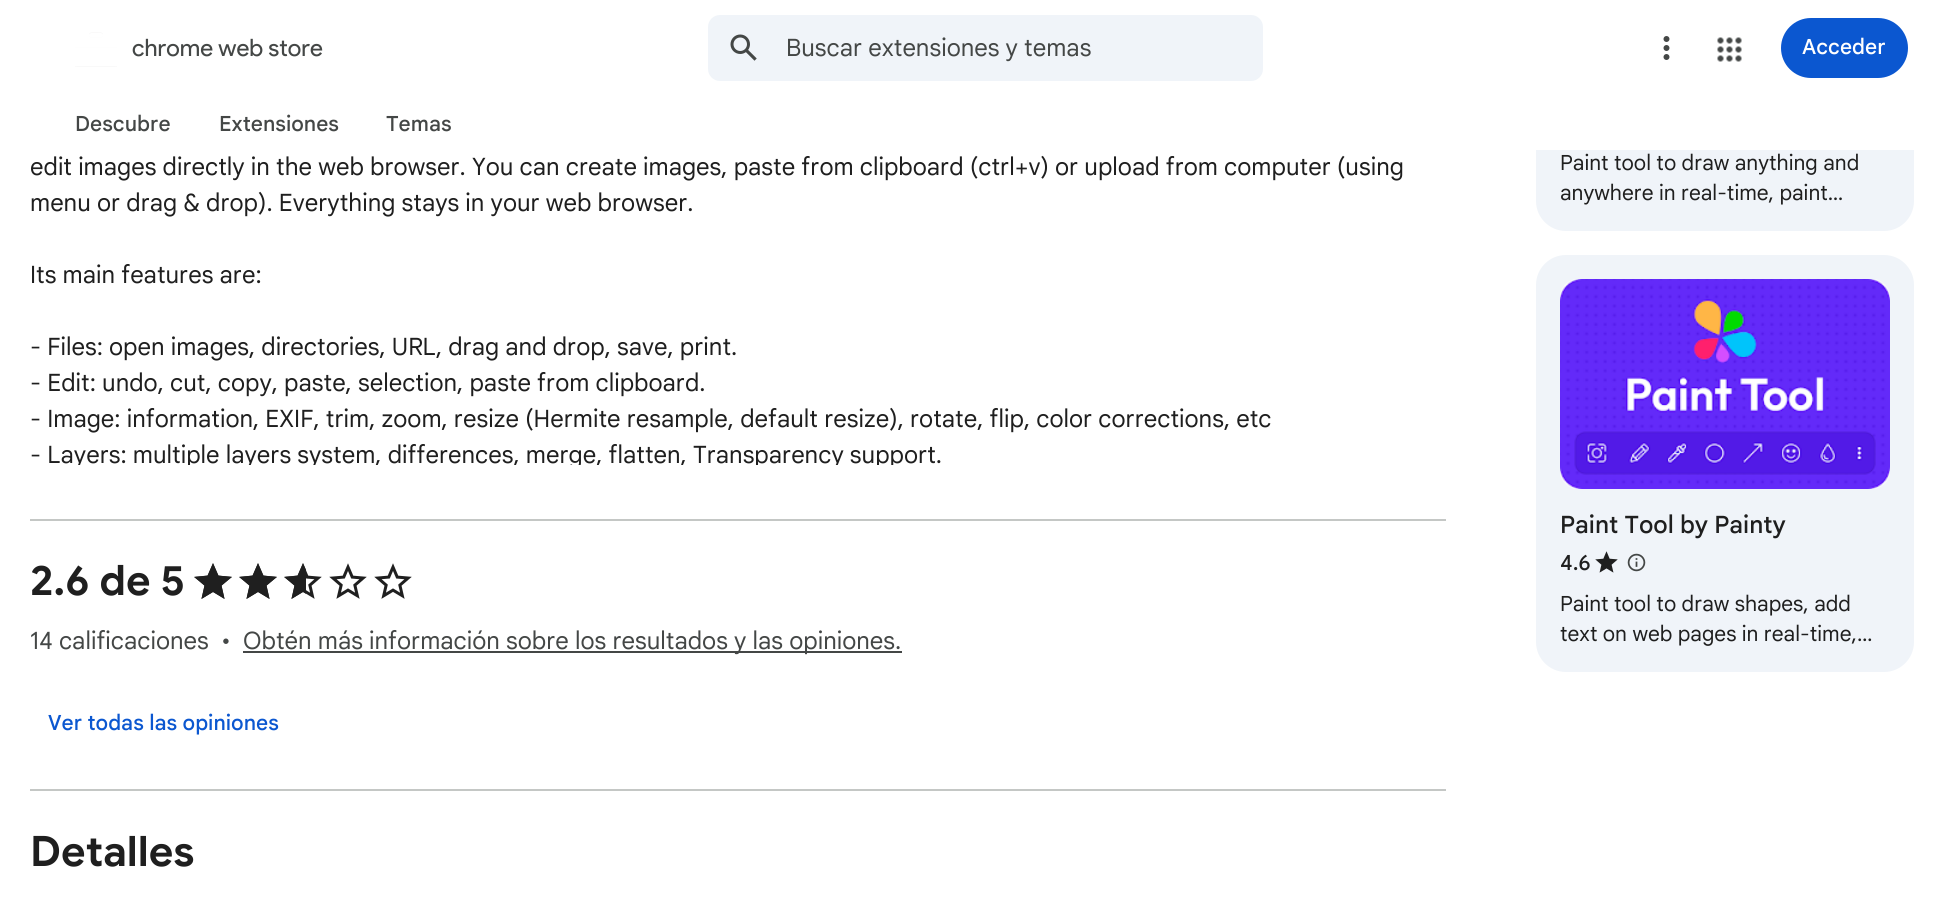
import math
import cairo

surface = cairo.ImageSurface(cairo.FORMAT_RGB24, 1950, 912)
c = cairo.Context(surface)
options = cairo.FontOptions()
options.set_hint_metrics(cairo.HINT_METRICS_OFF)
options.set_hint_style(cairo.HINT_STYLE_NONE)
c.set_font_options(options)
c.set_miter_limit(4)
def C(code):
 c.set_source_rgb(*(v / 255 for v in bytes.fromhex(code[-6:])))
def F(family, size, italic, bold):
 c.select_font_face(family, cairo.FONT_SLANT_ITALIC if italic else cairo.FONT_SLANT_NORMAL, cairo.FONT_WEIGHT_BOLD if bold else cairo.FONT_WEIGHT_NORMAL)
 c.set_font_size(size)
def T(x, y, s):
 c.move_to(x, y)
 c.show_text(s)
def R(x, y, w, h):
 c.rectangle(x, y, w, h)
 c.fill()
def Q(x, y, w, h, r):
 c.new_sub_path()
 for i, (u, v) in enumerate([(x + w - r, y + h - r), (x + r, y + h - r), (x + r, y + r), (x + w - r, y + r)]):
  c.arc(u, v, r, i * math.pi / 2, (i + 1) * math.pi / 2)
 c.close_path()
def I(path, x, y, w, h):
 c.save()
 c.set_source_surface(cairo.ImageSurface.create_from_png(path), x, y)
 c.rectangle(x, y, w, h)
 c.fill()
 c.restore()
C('ffffff')
c.paint()
C('f0f4f9')
Q(1536,-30,378,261,30)
c.fill()
C('ffffff')
R(1536,0,378,150)
I('1.png',75,32,42,35)
F('Product Sans',24,0,0)
C('444746')
T(132,56,'chrome web store')
C('f0f4f9')
Q(708,15,555,66,12)
c.fill()
I('2.png',730,34,27,27)
F('Google Sans',24,0,0)
C('444746')
T(786,56,'Buscar extensiones y temas')
I('3.png',1663,36,7,24)
I('4.png',1717,37,25,25)
C('0b57d0')
Q(1781,18,127,60,30)
c.fill()
F('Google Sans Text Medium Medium',21,0,0)
C('ffffff')
T(1802,54,'Acceder')
C('444746')
T(75,131,'Descubre')
T(219,131,'Extensiones')
T(386,131,'Temas')
C('c4c7c5')
R(30,519,1416,2)
F('Google Sans',24,0,0)
C('1f1f1f')
T(30,175,'edit images directly in the web browser. You can create images, paste from clipboard (ctrl+v) or upload from computer (using')
T(30,211,'menu or drag & drop). Everything stays in your web browser.')
T(30,283,'Its main features are:')
T(30,355,'- Files: open images, directories, URL, drag and drop, save, print.')
T(30,391,'- Edit: undo, cut, copy, paste, selection, paste from clipboard.')
T(30,427,'- Image: information, EXIF, trim, zoom, resize (Hermite resample, default resize), rotate, flip, color corrections, etc')
c.save()
c.rectangle(30,30,1416,435)
c.clip()
T(30,463,'- Layers: multiple layers system, differences, merge, flatten, Transparency support.')
c.restore()
C('c4c7c5')
R(30,789,1416,2)
F('Google Sans',42,0,1)
C('1f1f1f')
T(30,595,'2.6 de 5')
I('5.png',194,563,38,36)
I('5.png',239,563,38,36)
I('5.png',284,563,38,36)
I('5.png',329,563,38,36)
I('5.png',374,563,38,36)
c.new_path()
c.move_to(213,592)
c.line_to(224.5,599)
c.line_to(221.5,585.5)
c.line_to(232,577)
c.line_to(218.5,575.5)
c.line_to(213,563)
c.line_to(207.5,575.5)
c.line_to(194,577)
c.line_to(204.5,585.5)
c.line_to(201.5,599)
c.close_path()
c.fill()
c.new_path()
c.move_to(258,592)
c.line_to(269.5,599)
c.line_to(266.5,585.5)
c.line_to(277,577)
c.line_to(263.5,575.5)
c.line_to(258,563)
c.line_to(252.5,575.5)
c.line_to(239,577)
c.line_to(249.5,585.5)
c.line_to(246.5,599)
c.close_path()
c.fill()
c.save()
c.rectangle(281,560,25,45)
c.clip()
c.new_path()
c.move_to(303,592)
c.line_to(314.5,599)
c.line_to(311.5,585.5)
c.line_to(322,577)
c.line_to(308.5,575.5)
c.line_to(303,563)
c.line_to(297.5,575.5)
c.line_to(284,577)
c.line_to(294.5,585.5)
c.line_to(291.5,599)
c.close_path()
c.fill()
c.restore()
F('Google Sans',24,0,0)
C('444746')
T(30,649,'14 calificaciones')
T(221,649,'•')
R(243,651,659,2)
T(243,649,'Obtén más información sobre los resultados y las opiniones.')
F('Google Sans Text Medium Medium',21,0,0)
C('0b57d0')
T(48,730,'Ver todas las opiniones')
F('Google Sans',42,0,1)
C('1f1f1f')
T(30,866,'Detalles')
F('Google Sans',21,0,0)
T(1560,170,'Paint tool to draw anything and')
T(1560,200,'anywhere in real-time, paint…')
C('f0f4f9')
Q(1536,255,378,417,30)
c.fill()
I('6.png',1560,279,330,210)
F('Google Sans Medium',24,0,0)
C('1f1f1f')
T(1560,533,'Paint Tool by Painty')
F('Google Sans Medium',21,0,0)
T(1560,570,'4.6')
I('7.png',1595,551,23,22)
I('8.png',1627,553,19,19)
F('Google Sans',21,0,0)
T(1560,611,'Paint tool to draw shapes, add')
T(1560,641,'text on web pages in real-time,…')
surface.write_to_png('o.png')
